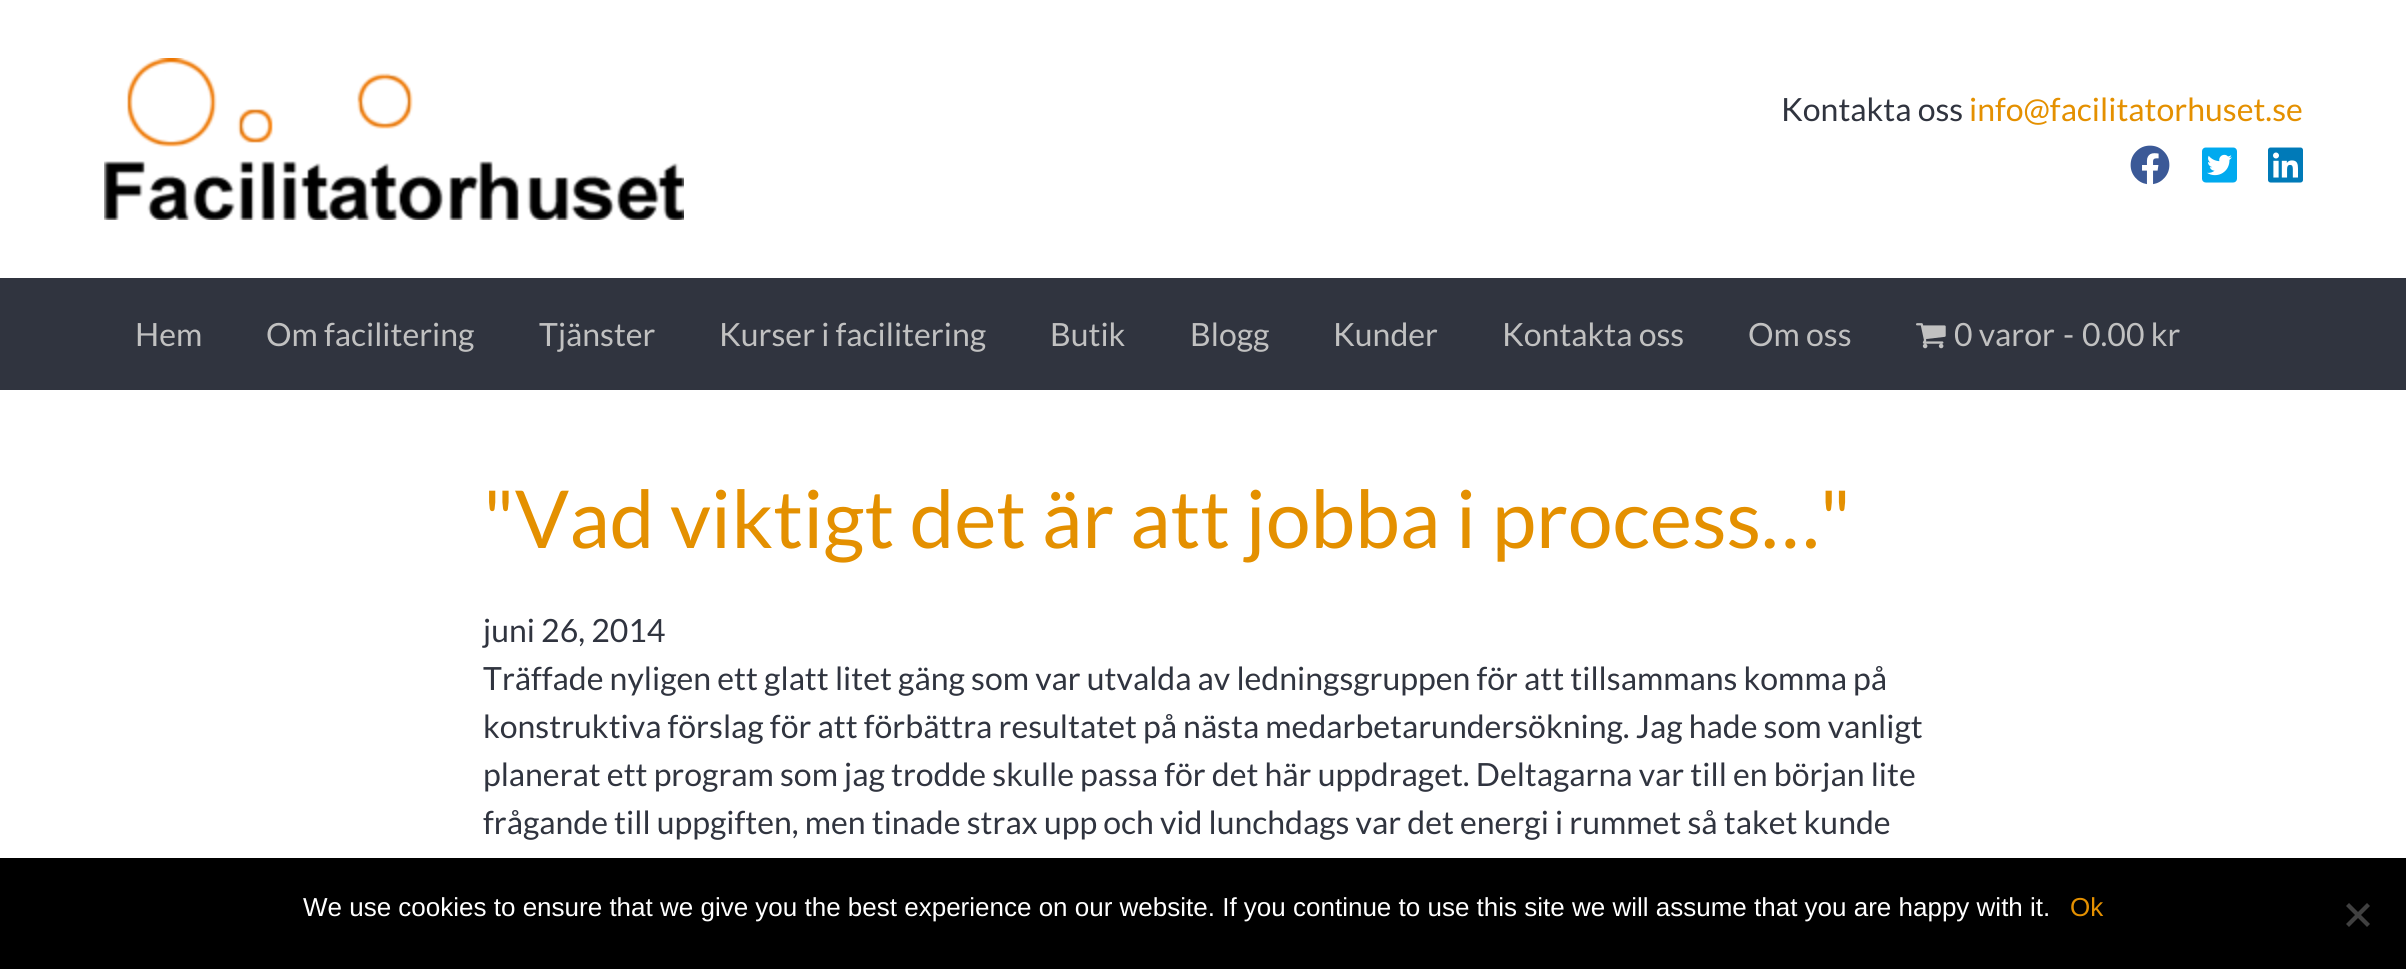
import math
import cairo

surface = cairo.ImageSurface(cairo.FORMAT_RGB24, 2406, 969)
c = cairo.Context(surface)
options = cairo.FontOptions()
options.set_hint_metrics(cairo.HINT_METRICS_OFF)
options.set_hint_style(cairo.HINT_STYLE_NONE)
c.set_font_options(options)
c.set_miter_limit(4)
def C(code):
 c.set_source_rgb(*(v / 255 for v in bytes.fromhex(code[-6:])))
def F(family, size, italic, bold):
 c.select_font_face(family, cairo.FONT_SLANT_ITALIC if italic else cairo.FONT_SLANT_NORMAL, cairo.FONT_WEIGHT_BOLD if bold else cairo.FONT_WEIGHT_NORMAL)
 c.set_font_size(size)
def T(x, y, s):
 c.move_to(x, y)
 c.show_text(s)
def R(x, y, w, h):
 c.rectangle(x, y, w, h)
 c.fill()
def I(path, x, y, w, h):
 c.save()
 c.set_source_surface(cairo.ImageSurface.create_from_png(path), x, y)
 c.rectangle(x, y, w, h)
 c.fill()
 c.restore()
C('ffffff')
c.paint()
I('1.png',104,58,580,162)
F('Lato',32,0,0)
C('30343f')
T(1781,121,'Kontakta oss')
C('e49000')
T(1969,121,'info@facilitatorhuset.se')
I('2.png',2130,145,40,40)
I('3.png',2202,147,35,36)
I('4.png',2268,147,35,36)
C('30343f')
R(0,278,2406,112)
C('c1c1c1')
T(135,346,'Hem')
T(266,346,'Om facilitering')
T(539,346,'Tjänster')
T(719,346,'Kurser i facilitering')
T(1050,346,'Butik')
T(1190,346,'Blogg')
T(1333,346,'Kunder')
T(1502,346,'Kontakta oss')
T(1748,346,'Om oss')
I('5.png',1916,323,30,26)
T(1954,346,'0 varor')
T(2063,346,'-')
T(2082,346,'0.00 kr')
F('Lato',80,0,0)
C('e49000')
T(483,548,'"Vad viktigt det är att jobba i process…"')
F('Lato',32,0,0)
C('30343f')
T(483,642,'juni 26, 2014')
T(483,690,'Träffade nyligen ett glatt litet gäng som var utvalda av ledningsgruppen för att tillsammans komma på')
T(483,738,'konstruktiva förslag för att förbättra resultatet på nästa medarbetarundersökning. Jag hade som vanligt')
T(483,786,'planerat ett program som jag trodde skulle passa för det här uppdraget. Deltagarna var till en början lite')
T(483,834,'frågande till uppgiften, men tinade strax upp och vid lunchdags var det energi i rummet så taket kunde')
C('000000')
R(0,858,2406,111)
F('Liberation Sans',26,0,0)
C('ffffff')
T(303,916,'We use cookies to ensure that we give you the best experience on our website. If you continue to use this site we will assume that you are happy with it.')
C('e49000')
T(2070,916,'Ok')
C('404040')
c.new_path()
c.move_to(2367,903)
c.line_to(2370,906)
c.line_to(2349,927)
c.line_to(2346,924)
c.close_path()
c.fill()
c.new_path()
c.move_to(2346,906)
c.line_to(2349,903)
c.line_to(2370,924)
c.line_to(2367,927)
c.close_path()
c.fill()
surface.write_to_png('o.png')
